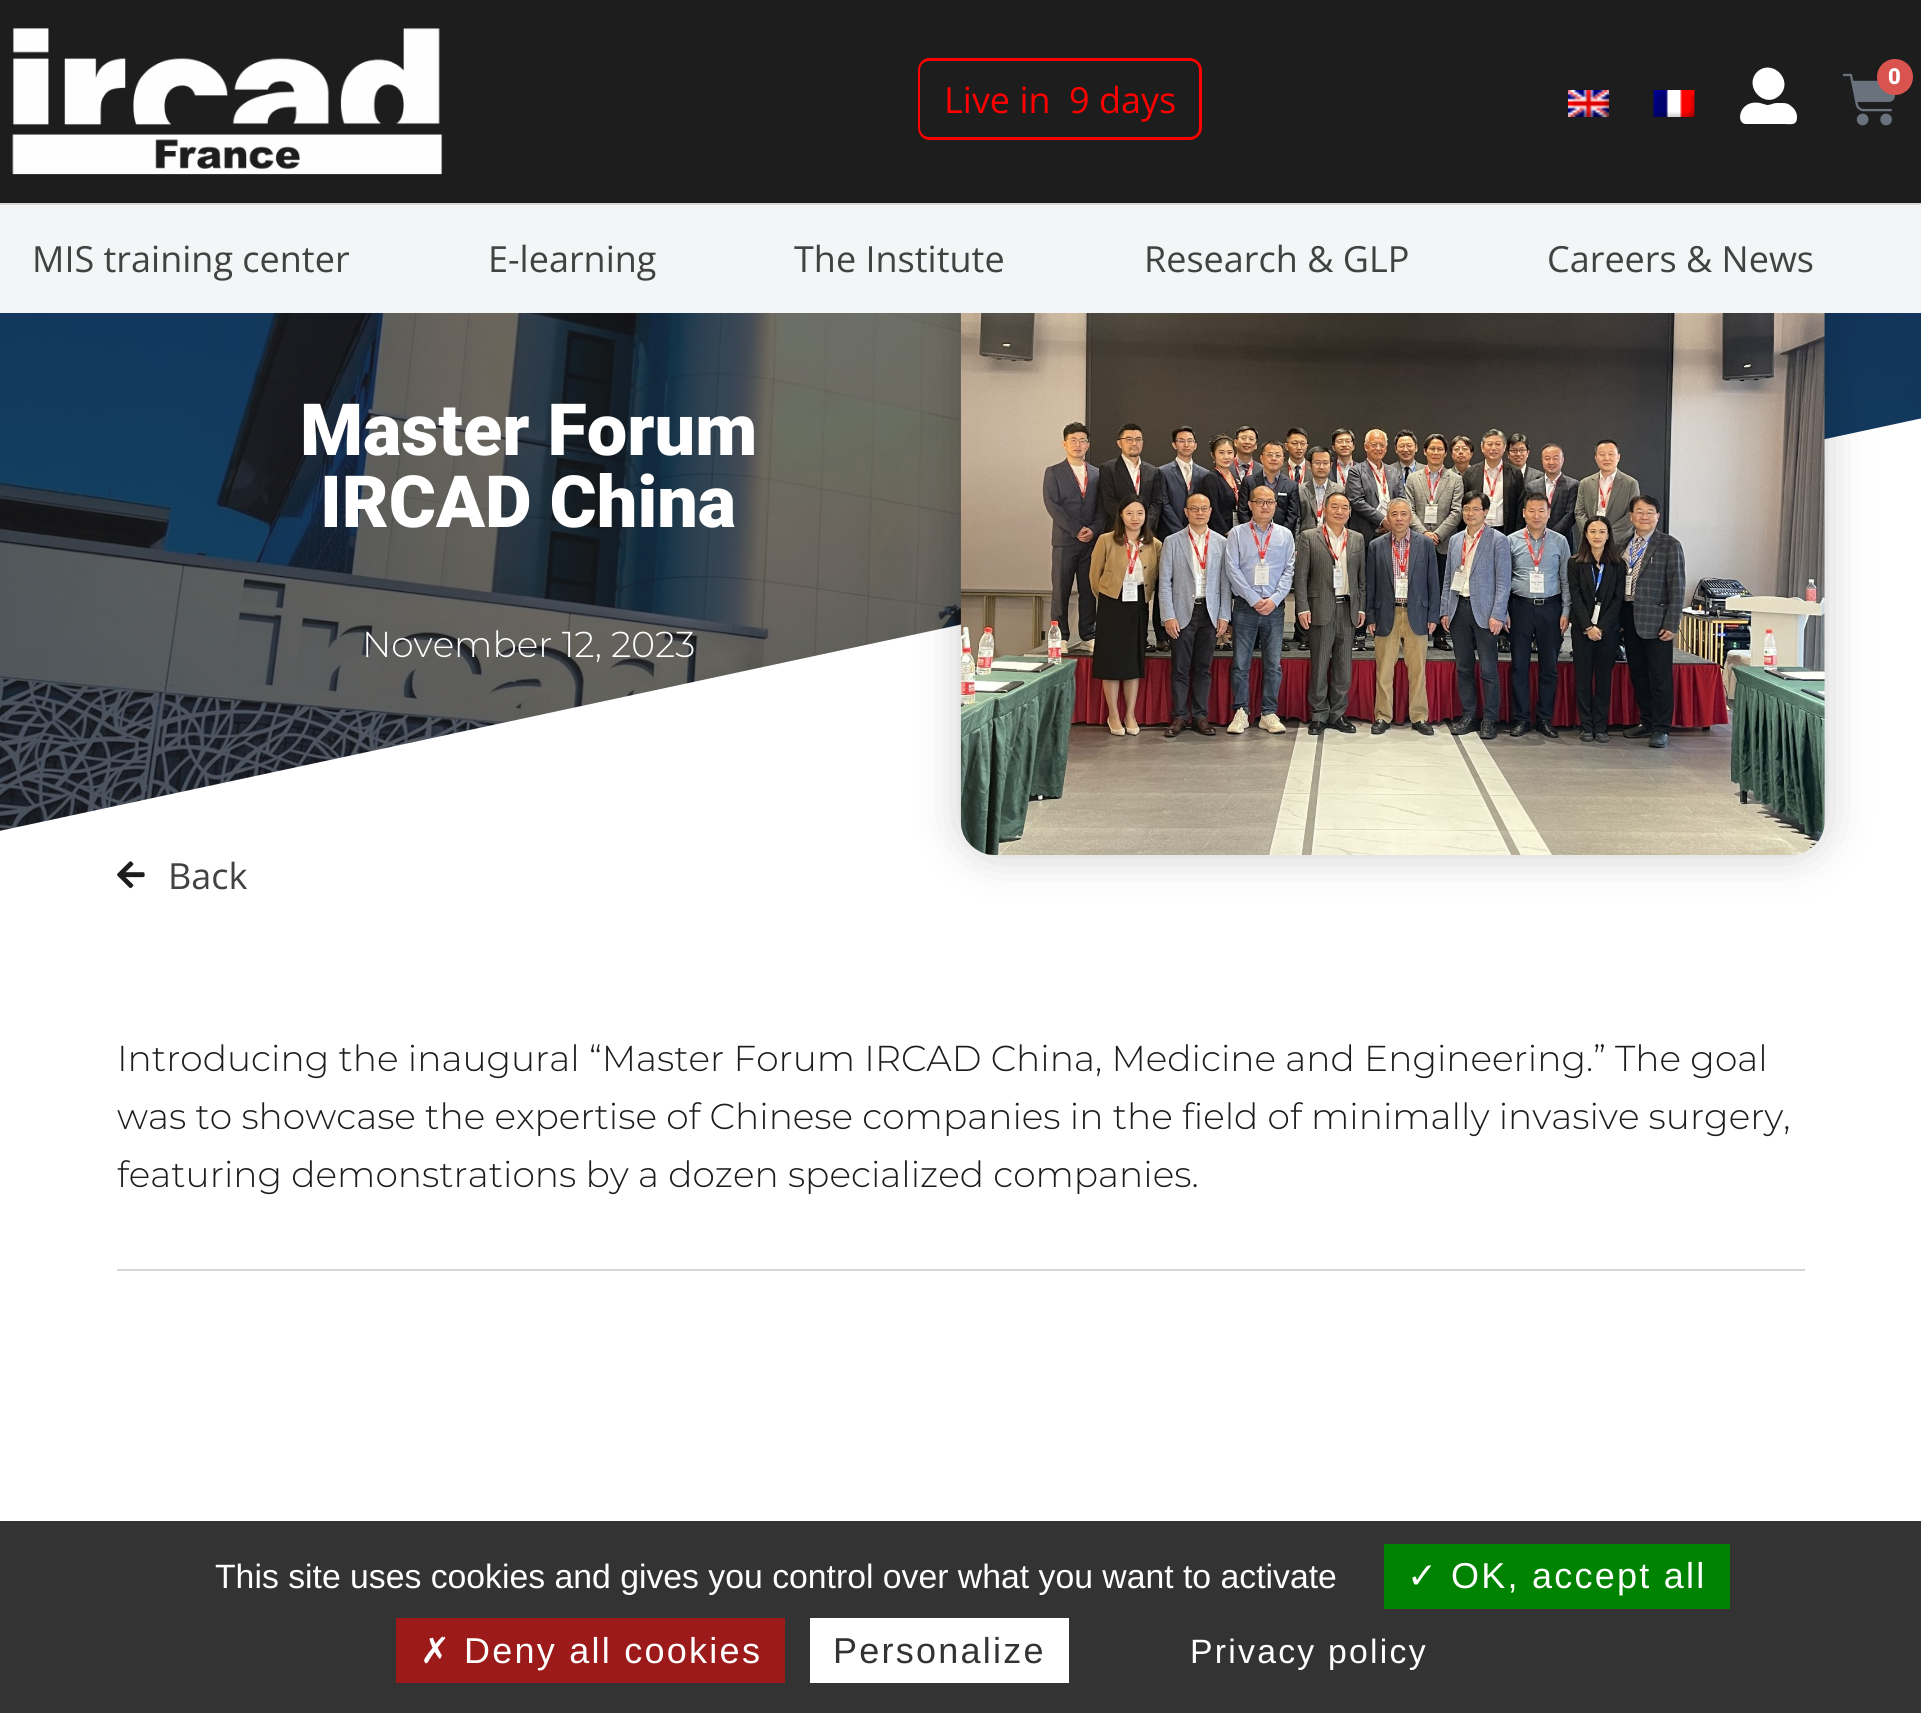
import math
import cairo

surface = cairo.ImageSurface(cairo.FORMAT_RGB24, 1921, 1713)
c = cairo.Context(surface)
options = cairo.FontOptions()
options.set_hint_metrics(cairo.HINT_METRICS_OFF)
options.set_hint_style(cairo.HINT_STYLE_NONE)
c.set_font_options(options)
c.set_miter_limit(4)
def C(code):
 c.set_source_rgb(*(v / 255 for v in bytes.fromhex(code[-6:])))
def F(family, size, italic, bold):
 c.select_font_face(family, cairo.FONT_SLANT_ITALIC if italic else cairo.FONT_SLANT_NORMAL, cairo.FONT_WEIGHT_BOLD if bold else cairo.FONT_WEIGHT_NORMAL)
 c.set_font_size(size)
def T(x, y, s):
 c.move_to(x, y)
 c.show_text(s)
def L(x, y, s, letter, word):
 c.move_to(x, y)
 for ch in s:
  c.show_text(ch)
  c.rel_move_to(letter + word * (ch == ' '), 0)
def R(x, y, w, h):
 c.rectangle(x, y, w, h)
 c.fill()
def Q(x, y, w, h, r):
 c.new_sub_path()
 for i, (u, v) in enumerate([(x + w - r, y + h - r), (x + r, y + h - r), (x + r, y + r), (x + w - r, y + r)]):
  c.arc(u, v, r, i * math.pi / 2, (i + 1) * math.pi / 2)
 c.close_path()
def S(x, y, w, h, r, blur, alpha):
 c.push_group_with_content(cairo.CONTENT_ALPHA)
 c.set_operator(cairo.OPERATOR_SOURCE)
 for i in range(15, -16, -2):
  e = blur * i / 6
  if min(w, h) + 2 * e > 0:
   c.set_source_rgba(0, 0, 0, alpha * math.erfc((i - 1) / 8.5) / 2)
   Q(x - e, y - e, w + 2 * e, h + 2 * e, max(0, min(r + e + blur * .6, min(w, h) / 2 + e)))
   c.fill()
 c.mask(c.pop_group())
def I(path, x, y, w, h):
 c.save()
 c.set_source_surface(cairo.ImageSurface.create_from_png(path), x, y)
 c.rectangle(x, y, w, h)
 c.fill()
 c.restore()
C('ffffff')
c.paint()
I('7.png',0,313,1921,518)
C('ffffff')
c.new_path()
c.move_to(-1,831)
c.line_to(-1,857)
c.line_to(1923,857)
c.line_to(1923,418)
c.close_path()
c.fill()
C('000000')
S(961,207,864,648,34,22.5,.2)
C('1d1d1d')
R(0,0,1921,203)
C('d7d7d7')
R(0,203,1921,2)
I('1.png',12,28,431,147)
C('ffffff')
c.new_path()
c.move_to(1780,95)
c.curve_to(1765,110,1743,87,1757,72)
c.curve_to(1772,58,1794,80,1780,95)
c.close_path()
c.move_to(1783,103)
c.curve_to(1786,103,1789,104,1791,106)
c.curve_to(1795,109,1797,113,1797,117)
c.curve_to(1797,126,1791,124,1784,124)
c.line_to(1746,124)
c.curve_to(1735,124,1739,99,1760,103)
c.line_to(1767,105)
c.curve_to(1771,105,1773,103,1777,103)
c.close_path()
c.fill()
I('2.png',1842,73,54,53)
C('d9534f')
c.arc(1895,77,18,0,2 * math.pi)
c.fill()
F('Roboto Black',22,0,0)
C('ffffff')
T(1888,84,'0')
I('3.png',1568,90,41,27)
I('4.png',1653,90,42,27)
C('ff0000')
c.set_fill_rule(cairo.FILL_RULE_EVEN_ODD)
c.new_path()
c.move_to(929,58)
c.line_to(1060,58)
c.line_to(1060,140)
c.line_to(929,140)
c.curve_to(923,140,918,134,918,128)
c.line_to(918,70)
c.curve_to(918,64,923,58,929,58)
c.close_path()
c.move_to(929,61)
c.line_to(1060,61)
c.line_to(1060,137)
c.line_to(929,137)
c.curve_to(924,137,920,133,920,128)
c.line_to(920,70)
c.curve_to(920,65,924,61,929,61)
c.close_path()
c.fill()
F('Open Sans',36,0,0)
T(944,113,'Live in')
c.new_path()
c.move_to(1060,58)
c.line_to(1190,58)
c.curve_to(1196,58,1202,64,1202,70)
c.line_to(1202,128)
c.curve_to(1202,134,1196,140,1190,140)
c.line_to(1060,140)
c.close_path()
c.move_to(1060,61)
c.line_to(1190,61)
c.curve_to(1195,61,1199,65,1199,70)
c.line_to(1199,128)
c.curve_to(1199,133,1195,137,1190,137)
c.line_to(1060,137)
c.close_path()
c.fill()
T(1069,113,'9 days')
I('5.png',1568,90,41,27)
I('6.png',1653,90,42,27)
C('f3f6f6')
R(0,205,1921,108)
C('424242')
T(32,272,'MIS training center')
T(488,272,'E-learning')
T(794,272,'The Institute')
T(1144,272,'Research & GLP')
T(1547,272,'Careers & News')
F('Roboto Black',72,0,0)
C('ffffff')
T(300,455,'Master Forum')
T(320,527,'IRCAD China')
F('Montserrat Light',36,0,0)
T(362,657,'November 12, 2023')
I('8.png',960,313,865,542)
I('9.png',117,861,28,28)
F('Open Sans',36,0,0)
C('424242')
T(168,889,'Back')
F('Montserrat Light',36,0,0)
C('1d1d1d')
T(117,1071,'Introducing the inaugural “Master Forum IRCAD China, Medicine and Engineering.” The goal')
T(117,1129,'was to showcase the expertise of Chinese companies in the field of minimally invasive surgery,')
T(117,1187,'featuring demonstrations by a dozen specialized companies.')
C('d7d7d7')
R(117,1269,1688,2)
C('333333')
R(0,1521,1921,192)
F('Liberation Sans',33.75,0,0)
C('ffffff')
T(215,1588,'This site uses cookies and gives you control over what you want to activate')
C('008300')
R(1384,1544,346,65)
F('DejaVu Sans',36,0,0)
C('ffffff')
L(1407,1588,'✓',2.25,0)
F('Liberation Sans',36,0,0)
L(1451,1588,'OK, accept all',2.25,0)
C('9c1a1a')
R(396,1618,389,65)
F('DejaVu Sans',36,0,0)
C('ffffff')
L(420,1663,'✗',2.25,0)
F('Liberation Sans',36,0,0)
L(464,1663,'Deny all cookies',2.25,0)
R(810,1618,259,65)
C('333333')
L(833,1663,'Personalize',2.25,0)
F('Liberation Sans',33.75,0,0)
C('ffffff')
L(1190,1663,'Privacy policy',2.25,0)
surface.write_to_png('o.png')
